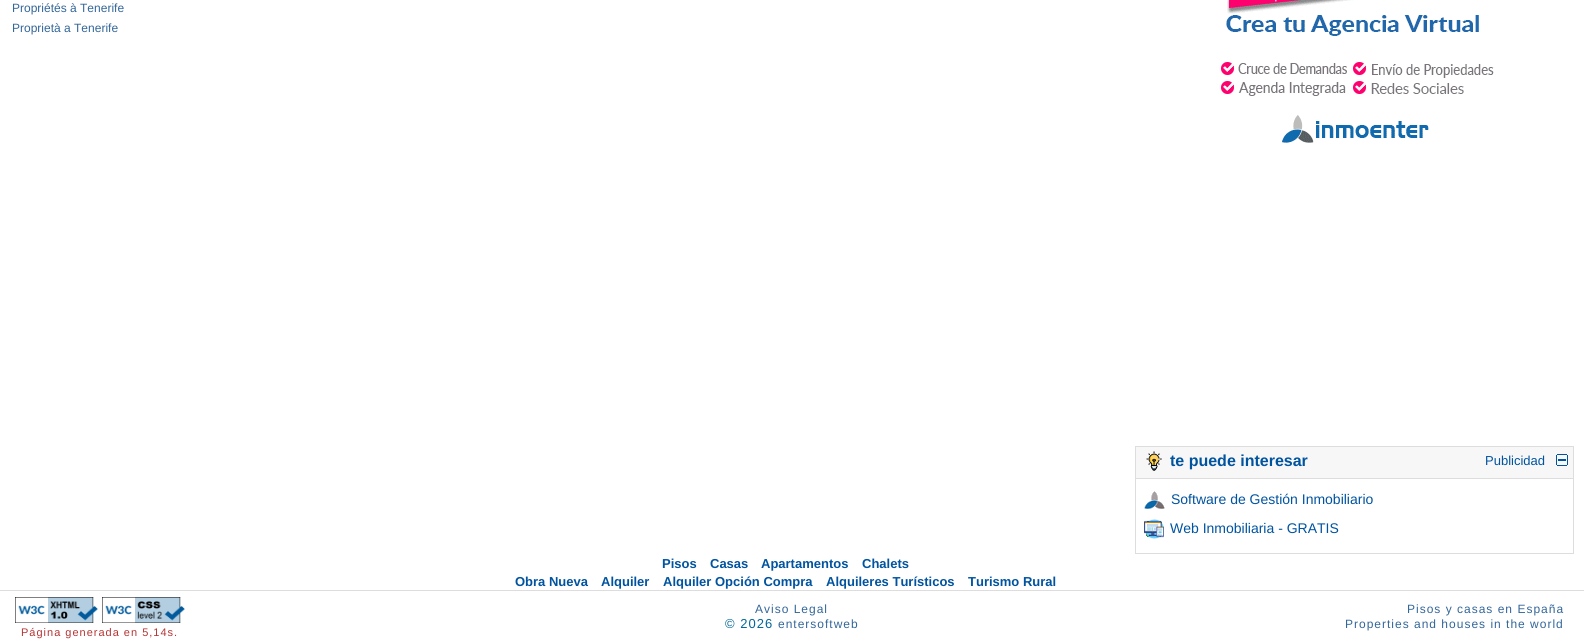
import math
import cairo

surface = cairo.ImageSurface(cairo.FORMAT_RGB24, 1584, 643)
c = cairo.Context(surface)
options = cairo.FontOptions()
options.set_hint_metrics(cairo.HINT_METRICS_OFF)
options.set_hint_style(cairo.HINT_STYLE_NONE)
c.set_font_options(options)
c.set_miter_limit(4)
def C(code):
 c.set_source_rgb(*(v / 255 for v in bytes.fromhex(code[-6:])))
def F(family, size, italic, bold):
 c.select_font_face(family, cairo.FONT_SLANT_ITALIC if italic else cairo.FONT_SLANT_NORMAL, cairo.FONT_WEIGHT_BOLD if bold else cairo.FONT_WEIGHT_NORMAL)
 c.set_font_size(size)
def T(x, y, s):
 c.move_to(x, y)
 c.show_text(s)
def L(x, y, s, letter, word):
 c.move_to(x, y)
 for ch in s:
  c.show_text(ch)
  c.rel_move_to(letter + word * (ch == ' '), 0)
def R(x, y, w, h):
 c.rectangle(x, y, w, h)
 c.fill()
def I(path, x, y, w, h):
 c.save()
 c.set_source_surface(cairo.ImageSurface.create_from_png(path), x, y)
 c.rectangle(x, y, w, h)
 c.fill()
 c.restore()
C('ffffff')
c.paint()
F('Liberation Sans',12,0,0)
C('336699')
T(12,12,'Propriétés à Tenerife')
T(12,32,'Proprietà a Tenerife')
I('1.png',1221,0,273,143)
c.rectangle(1135.5,446.5,438,107)
C('dddddd')
c.set_line_width(1)
c.stroke()
C('f7f7f7')
R(1136,447,437,31)
I('2.png',1146,451,16,20)
F('Liberation Sans',16,0,1)
C('00539f')
T(1170,466,'te puede interesar')
F('Liberation Sans',13,0,0)
T(1485,465,'Publicidad')
I('3.png',1556,454,12,12)
C('dddddd')
R(1136,478,437,1)
I('4.png',1144,491,21,18)
F('Liberation Sans',14,0,0)
C('00539f')
T(1171,504,'Software de Gestión Inmobiliario')
I('5.png',1144,519,20,20)
T(1170,533,'Web Inmobiliaria - GRATIS')
F('Liberation Sans',13,0,1)
T(662,568,'Pisos')
T(710,568,'Casas')
T(761,568,'Apartamentos')
T(862,568,'Chalets')
T(515,586,'Obra Nueva')
T(601,586,'Alquiler')
T(663,586,'Alquiler Opción Compra')
T(826,586,'Alquileres Turísticos')
T(968,586,'Turismo Rural')
C('dddddd')
R(0,590,1584,1)
F('Liberation Sans',13,0,0)
C('006699')
L(725,628,'© 2026',1,0)
F('Liberation Sans',12,0,0)
C('336699')
L(755,613,'Aviso Legal',1,0)
L(1407,613,'Pisos y casas en España',1,0)
L(1345,628,'Properties and houses in the world',1,0)
L(778,628,'entersoftweb',1,0)
I('6.png',15,597,83,26)
I('7.png',102,597,83,26)
F('Liberation Sans',11,0,0)
C('b63434')
L(21,636,'Página generada en 5,14s.',1,0)
surface.write_to_png('o.png')
